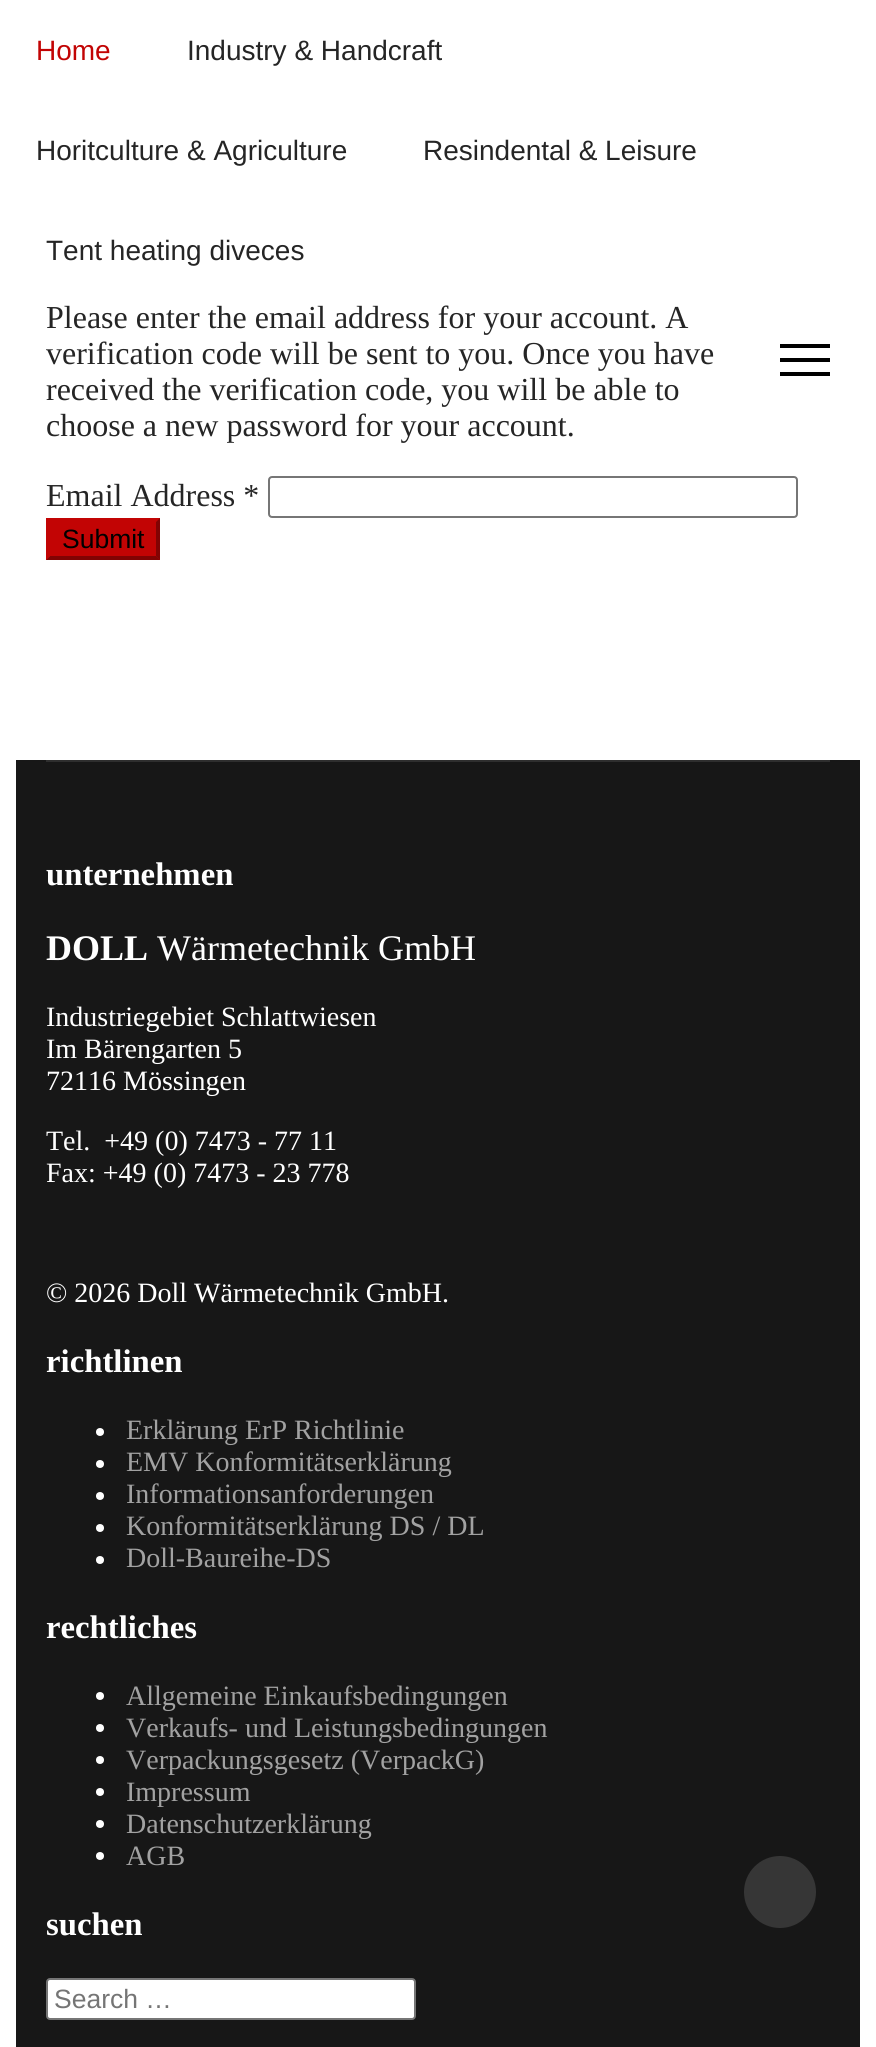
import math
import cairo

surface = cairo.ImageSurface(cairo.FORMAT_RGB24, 876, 2047)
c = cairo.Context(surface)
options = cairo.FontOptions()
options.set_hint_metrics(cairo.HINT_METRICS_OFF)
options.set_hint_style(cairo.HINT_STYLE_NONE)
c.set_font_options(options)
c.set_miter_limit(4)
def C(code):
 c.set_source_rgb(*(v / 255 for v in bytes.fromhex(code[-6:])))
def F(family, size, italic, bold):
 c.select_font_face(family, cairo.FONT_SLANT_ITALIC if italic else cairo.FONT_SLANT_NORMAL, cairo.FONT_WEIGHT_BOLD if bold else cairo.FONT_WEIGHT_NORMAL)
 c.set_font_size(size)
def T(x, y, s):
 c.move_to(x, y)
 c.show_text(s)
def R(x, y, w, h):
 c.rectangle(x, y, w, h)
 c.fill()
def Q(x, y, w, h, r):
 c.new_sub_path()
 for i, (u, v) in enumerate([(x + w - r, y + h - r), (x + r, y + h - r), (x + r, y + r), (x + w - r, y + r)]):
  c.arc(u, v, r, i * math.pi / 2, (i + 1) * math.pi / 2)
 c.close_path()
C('ffffff')
c.paint()
F('Liberation Sans',28,0,0)
C('c20404')
T(36,60,'Home')
C('252525')
T(187,60,'Industry & Handcraft')
T(36,160,'Horitculture & Agriculture')
T(423,160,'Resindental & Leisure')
T(46,260,'Tent heating diveces')
C('000000')
R(780,344,50,4)
R(780,358,50,4)
R(780,372,50,4)
F('Liberation Serif',32,0,0)
C('252525')
T(46,328,'Please enter the email address for your account. A')
T(46,364,'verification code will be sent to you. Once you have')
T(46,400,'received the verification code, you will be able to')
T(46,436,'choose a new password for your account.')
T(46,506,'Email Address *')
Q(269,477,528,40,3)
C('767676')
c.stroke()
C('c20404')
R(46,518,114,42)
C('810303')
c.new_path()
c.move_to(160,518)
c.line_to(160,560)
c.line_to(156,556)
c.line_to(156,522)
c.close_path()
c.fill()
c.new_path()
c.move_to(160,560)
c.line_to(46,560)
c.line_to(50,556)
c.line_to(156,556)
c.close_path()
c.fill()
C('c20404')
c.new_path()
c.move_to(46,560)
c.line_to(46,518)
c.line_to(50,522)
c.line_to(50,556)
c.close_path()
c.fill()
F('Liberation Sans',26.5,0,0)
C('000000')
T(62,548,'Submit')
C('171717')
R(16,760,844,1287)
C('2e2e2e')
R(46,760,784,2)
F('Liberation Serif',32.75,0,1)
C('ffffff')
T(46,885,'unternehmen')
F('Liberation Serif',36,0,1)
T(46,960,'DOLL')
F('Liberation Serif',36,0,0)
T(157,960,'Wärmetechnik GmbH')
F('Liberation Serif',28,0,0)
T(46,1026,'Industriegebiet Schlattwiesen')
T(46,1058,'Im Bärengarten 5')
T(46,1090,'72116 Mössingen')
T(46,1150,'Tel.  +49 (0) 7473 - 77 11')
T(46,1182,'Fax: +49 (0) 7473 - 23 778')
T(46,1302,'© 2026 Doll Wärmetechnik GmbH.')
F('Liberation Serif',32.75,0,1)
T(46,1372,'richtlinen')
c.new_path()
c.arc(100,1432,4,0,2 * math.pi)
c.fill()
F('Liberation Serif',28,0,0)
C('a2a2a2')
T(126,1439,'Erklärung ErP Richtlinie')
C('ffffff')
c.new_path()
c.arc(100,1464,4,0,2 * math.pi)
c.fill()
C('a2a2a2')
T(126,1471,'EMV Konformitätserklärung')
C('ffffff')
c.new_path()
c.arc(100,1496,4,0,2 * math.pi)
c.fill()
C('a2a2a2')
T(126,1503,'Informationsanforderungen')
C('ffffff')
c.new_path()
c.arc(100,1528,4,0,2 * math.pi)
c.fill()
C('a2a2a2')
T(126,1535,'Konformitätserklärung DS / DL')
C('ffffff')
c.new_path()
c.arc(100,1560,4,0,2 * math.pi)
c.fill()
C('a2a2a2')
T(126,1567,'Doll-Baureihe-DS')
F('Liberation Serif',32.75,0,1)
C('ffffff')
T(46,1638,'rechtliches')
c.new_path()
c.arc(100,1696,4,0,2 * math.pi)
c.fill()
F('Liberation Serif',28,0,0)
C('a2a2a2')
T(126,1705,'Allgemeine Einkaufsbedingungen')
C('ffffff')
c.new_path()
c.arc(100,1728,4,0,2 * math.pi)
c.fill()
C('a2a2a2')
T(126,1737,'Verkaufs- und Leistungsbedingungen')
C('ffffff')
c.new_path()
c.arc(100,1760,4,0,2 * math.pi)
c.fill()
C('a2a2a2')
T(126,1769,'Verpackungsgesetz (VerpackG)')
C('ffffff')
c.new_path()
c.arc(100,1792,4,0,2 * math.pi)
c.fill()
C('a2a2a2')
T(126,1801,'Impressum')
C('ffffff')
c.new_path()
c.arc(100,1824,4,0,2 * math.pi)
c.fill()
C('a2a2a2')
T(126,1833,'Datenschutzerklärung')
C('ffffff')
c.new_path()
c.arc(100,1856,4,0,2 * math.pi)
c.fill()
C('a2a2a2')
T(126,1865,'AGB')
F('Liberation Serif',32.75,0,1)
C('ffffff')
T(46,1935,'suchen')
Q(47,1979,368,40,3)
c.fill_preserve()
C('767676')
c.stroke()
F('Liberation Sans',26.5,0,0)
C('757575')
T(54,2008,'Search …')
C('363636')
c.new_path()
c.arc(780,1892,36,0,2 * math.pi)
c.fill()
surface.write_to_png('o.png')
